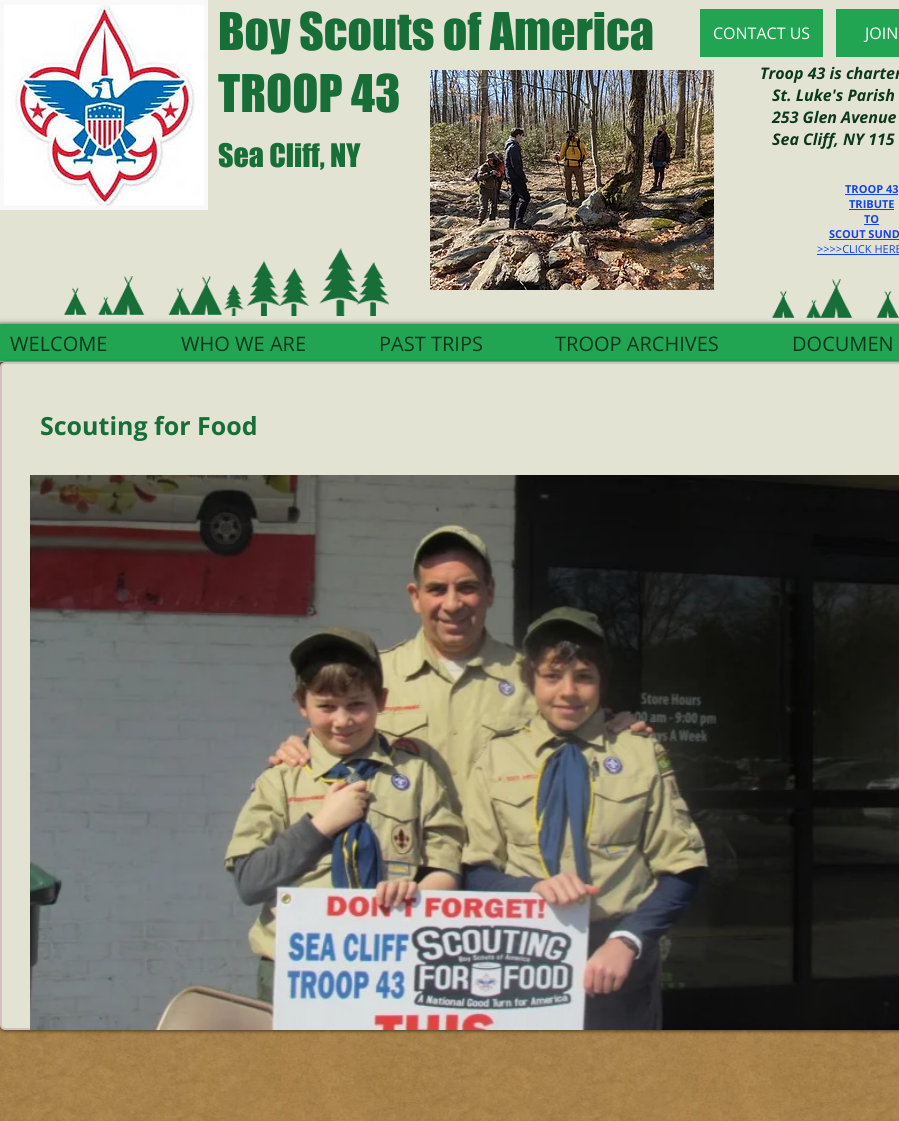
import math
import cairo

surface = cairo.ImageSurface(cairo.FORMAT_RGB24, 899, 1121)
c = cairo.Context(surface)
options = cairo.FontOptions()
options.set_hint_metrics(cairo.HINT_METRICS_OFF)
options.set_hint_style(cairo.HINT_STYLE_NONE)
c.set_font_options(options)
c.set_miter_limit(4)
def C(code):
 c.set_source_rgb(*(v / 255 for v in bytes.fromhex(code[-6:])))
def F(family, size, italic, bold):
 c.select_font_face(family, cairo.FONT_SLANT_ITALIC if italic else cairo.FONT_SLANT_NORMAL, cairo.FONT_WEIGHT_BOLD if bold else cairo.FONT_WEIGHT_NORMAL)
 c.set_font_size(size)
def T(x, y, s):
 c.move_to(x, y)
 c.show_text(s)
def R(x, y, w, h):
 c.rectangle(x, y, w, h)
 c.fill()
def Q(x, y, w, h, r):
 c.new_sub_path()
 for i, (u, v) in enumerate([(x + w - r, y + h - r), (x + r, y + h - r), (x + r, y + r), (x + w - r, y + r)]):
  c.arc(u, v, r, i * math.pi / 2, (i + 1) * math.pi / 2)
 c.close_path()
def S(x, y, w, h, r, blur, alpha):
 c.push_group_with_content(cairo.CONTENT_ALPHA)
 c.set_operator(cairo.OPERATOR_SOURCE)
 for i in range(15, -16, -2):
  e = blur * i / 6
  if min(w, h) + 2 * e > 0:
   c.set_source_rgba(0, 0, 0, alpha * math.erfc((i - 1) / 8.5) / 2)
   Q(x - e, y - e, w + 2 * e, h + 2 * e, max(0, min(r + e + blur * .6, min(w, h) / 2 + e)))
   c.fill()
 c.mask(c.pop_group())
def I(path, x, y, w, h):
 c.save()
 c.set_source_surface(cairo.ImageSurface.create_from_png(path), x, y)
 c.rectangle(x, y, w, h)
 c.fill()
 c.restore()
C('ffffff')
c.paint()
I('7.png',0,362,899,759)
C('000000')
S(0,0,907,362,0,2.5,.7)
C('e3e3d4')
R(0,0,899,362)
I('1.png',0,0,208,210)
F('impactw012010',48,0,0)
C('176e37')
T(218,50,'Boy Scouts of America')
T(218,112,'TROOP 43')
F('impactw012010',30,0,0)
T(218,167,'Sea Cliff, NY')
C('22a552')
R(700,9,123,48)
F('Open Sans',16,0,0)
C('ffffff')
T(713,39,'CONTACT US')
C('22a552')
R(836,9,63,48)
C('ffffff')
T(865,39,'JOIN')
I('2.png',430,70,284,220)
F('Open Sans',16,1,1)
C('0b371b')
T(760,79,'Troop 43 is charter')
T(772,101,'St. Luke\'s Parish')
T(772,123,'253 Glen Avenue')
T(772,145,'Sea Cliff, NY 115')
F('Open Sans',11,0,1)
C('1344e8')
T(845,193,'TROOP 43')
R(845,194,53,1)
T(849,208,'TRIBUTE')
R(849,209,45,1)
T(864,223,'TO')
R(864,224,15,1)
T(829,238,'SCOUT SUND')
R(829,239,70,1)
F('Open Sans',11,0,0)
T(817,253,'>>>>CLICK HERE')
R(817,254,82,1)
I('3.png',63,276,159,39)
I('4.png',223,248,166,68)
I('5.png',771,279,128,39)
C('000000')
S(0,324,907,37,0,2.5,.7)
C('22a552')
R(0,324,899,37)
F('Open Sans',20,0,0)
C('0b371b')
T(10,351,'WELCOME')
T(181,351,'WHO WE ARE')
T(379,351,'PAST TRIPS')
T(555,351,'TROOP ARCHIVES')
T(792,351,'DOCUMEN')
C('000000')
S(0,363,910,668,5,2,.6)
C('e3e3d4')
Q(1,363,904,666,4)
c.fill_preserve()
C('d5bfbf')
c.stroke()
F('Open Sans',25,0,1)
C('176e37')
T(40,435,'Scouting for Food')
I('6.png',30,475,869,555)
surface.write_to_png('o.png')
